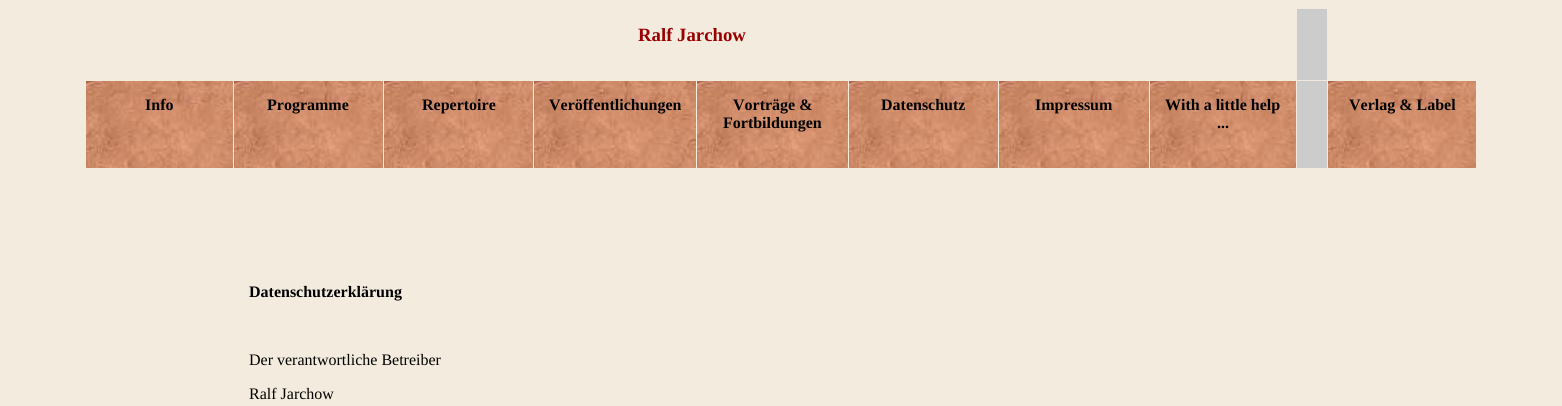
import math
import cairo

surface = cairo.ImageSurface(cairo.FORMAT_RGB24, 1562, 406)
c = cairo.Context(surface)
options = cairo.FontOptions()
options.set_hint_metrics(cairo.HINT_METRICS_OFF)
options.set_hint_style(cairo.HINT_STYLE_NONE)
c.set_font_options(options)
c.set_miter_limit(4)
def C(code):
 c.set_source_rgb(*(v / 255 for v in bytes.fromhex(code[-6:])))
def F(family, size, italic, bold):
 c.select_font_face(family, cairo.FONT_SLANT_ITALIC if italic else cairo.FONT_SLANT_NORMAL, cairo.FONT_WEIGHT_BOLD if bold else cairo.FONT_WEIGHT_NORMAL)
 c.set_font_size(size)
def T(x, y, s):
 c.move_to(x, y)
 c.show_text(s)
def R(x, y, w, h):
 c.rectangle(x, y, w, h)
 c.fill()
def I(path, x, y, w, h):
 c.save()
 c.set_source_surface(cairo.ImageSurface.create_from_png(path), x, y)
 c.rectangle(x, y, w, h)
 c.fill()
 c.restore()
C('f3ebde')
c.paint()
F('Liberation Serif',18.75,0,1)
C('990000')
T(638,41,'Ralf Jarchow')
C('cccccc')
R(1297,9,30,71)
I('1.png',86,81,147,87)
F('Liberation Serif',16,0,1)
C('000000')
T(145,110,'Info')
I('2.png',234,81,149,87)
T(267,110,'Programme')
I('3.png',384,81,149,87)
T(422,110,'Repertoire')
I('4.png',534,81,162,87)
T(549,110,'Veröffentlichungen')
I('5.png',697,81,151,87)
T(733,110,'Vorträge &')
T(723,128,'Fortbildungen')
I('6.png',849,81,149,87)
T(881,110,'Datenschutz')
I('7.png',999,81,150,87)
T(1035,110,'Impressum')
I('8.png',1150,81,146,87)
T(1165,110,'With a little help')
T(1217,128,'...')
C('cccccc')
R(1297,81,30,87)
I('9.png',1328,81,148,87)
C('000000')
T(1349,110,'Verlag & Label')
T(249,297,'Datenschutzerklärung')
F('Liberation Serif',16,0,0)
T(249,365,'Der verantwortliche Betreiber')
T(249,399,'Ralf Jarchow')
surface.write_to_png('o.png')
